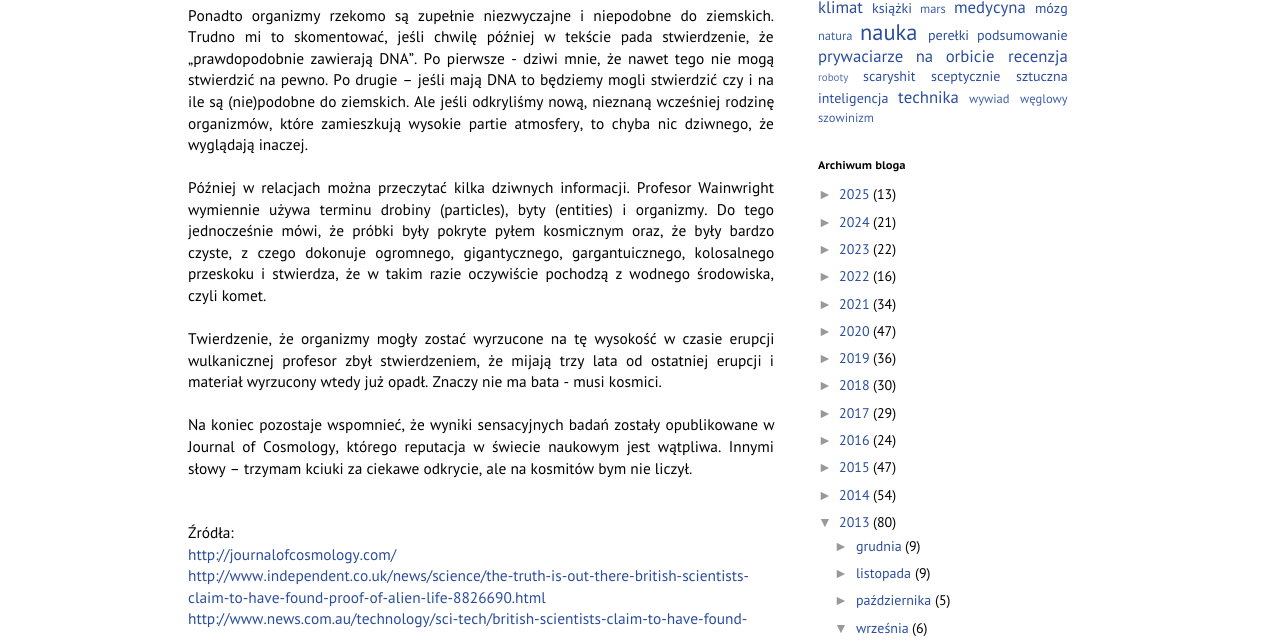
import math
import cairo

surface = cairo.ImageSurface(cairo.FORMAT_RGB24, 1271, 641)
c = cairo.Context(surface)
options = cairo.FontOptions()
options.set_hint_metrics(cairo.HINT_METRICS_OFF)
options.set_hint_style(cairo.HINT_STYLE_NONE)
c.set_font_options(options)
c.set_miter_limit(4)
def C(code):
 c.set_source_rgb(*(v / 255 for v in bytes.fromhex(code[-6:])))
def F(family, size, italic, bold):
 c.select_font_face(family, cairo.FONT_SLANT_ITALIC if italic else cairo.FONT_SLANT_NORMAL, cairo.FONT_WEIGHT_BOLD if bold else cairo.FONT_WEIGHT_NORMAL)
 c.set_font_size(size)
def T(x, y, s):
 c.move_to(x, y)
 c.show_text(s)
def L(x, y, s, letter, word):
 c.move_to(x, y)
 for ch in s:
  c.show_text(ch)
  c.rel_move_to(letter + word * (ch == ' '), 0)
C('ffffff')
c.paint()
F('PT Sans',15.4,0,0)
C('000000')
L(188,21,'Ponadto organizmy rzekomo są zupełnie niezwyczajne i niepodobne do ziemskich.',0,5)
L(188,42,'Trudno mi to skomentować, jeśli chwilę później w tekście pada stwierdzenie, że',0,5.5)
L(188,64,'„prawdopodobnie zawierają DNA”. Po pierwsze - dziwi mnie, że nawet tego nie mogą',0,2.25)
L(188,85,'stwierdzić na pewno. Po drugie – jeśli mają DNA to będziemy mogli stwierdzić czy i na',0,1)
L(188,107,'ile są (nie)podobne do ziemskich. Ale jeśli odkryliśmy nową, nieznaną wcześniej rodzinę',0,.75)
L(188,129,'organizmów, które zamieszkują wysokie partie atmosfery, to chyba nic dziwnego, że',0,3.4)
T(188,150,'wyglądają inaczej.')
L(188,193,'Później w relacjach można przeczytać kilka dziwnych informacji. Profesor Wainwright',0,2.75)
L(188,215,'wymiennie używa terminu drobiny (particles), byty (entities) i organizmy. Do tego',0,5.25)
L(188,236,'jednocześnie mówi, że próbki były pokryte pyłem kosmicznym oraz, że były bardzo',0,4)
L(188,258,'czyste, z czego dokonuje ogromnego, gigantycznego, gargantuicznego, kolosalnego',0,5.25)
L(188,279,'przeskoku i stwierdza, że w takim razie oczywiście pochodzą z wodnego środowiska,',0,2.9)
T(188,301,'czyli komet.')
L(188,344,'Twierdzenie, że organizmy mogły zostać wyrzucone na tę wysokość w czasie erupcji',0,3.1)
L(188,366,'wulkanicznej profesor zbył stwierdzeniem, że mijają trzy lata od ostatniej erupcji i',0,4.25)
T(188,387,'materiał wyrzucony wtedy już opadł. Znaczy nie ma bata - musi kosmici.')
L(188,430,'Na koniec pozostaje wspomnieć, że wyniki sensacyjnych badań zostały opublikowane w',0,1)
L(188,452,'Journal of Cosmology, którego reputacja w świecie naukowym jest wątpliwa. Innymi',0,3.4)
T(188,474,'słowy – trzymam kciuki za ciekawe odkrycie, ale na kosmitów bym nie liczył.')
T(188,538,'Źródła:')
C('2a4d9c')
T(188,560,'http://journalofcosmology.com/')
T(188,581,'http://www.independent.co.uk/news/science/the-truth-is-out-there-british-scientists-')
T(188,603,'claim-to-have-found-proof-of-alien-life-8826690.html')
T(188,624,'http://www.news.com.au/technology/sci-tech/british-scientists-claim-to-have-found-')
F('PT Sans',16.75,0,0)
T(818,13,'klimat')
F('PT Sans',14,0,0)
T(872,13,'książki')
F('PT Sans',12.5,0,0)
C('3f5fa6')
T(920,13,'mars')
F('PT Sans',16.75,0,0)
C('2a4d9c')
T(954,13,'medycyna')
F('PT Sans',14,0,0)
T(1035,13,'mózg')
F('PT Sans',12.5,0,0)
C('3f5fa6')
T(818,40,'natura')
F('PT Sans',22.5,0,0)
C('2a4d9c')
T(860,40,'nauka')
F('PT Sans',14,0,0)
T(928,40,'perełki')
T(977,40,'podsumowanie')
F('PT Sans',16.75,0,0)
L(818,62,'prywaciarze na orbicie',0,8)
T(1008,62,'recenzja')
F('PT Sans',11,0,0)
C('5571b0')
T(818,81,'roboty')
F('PT Sans',14,0,0)
C('2a4d9c')
T(863,81,'scaryshit')
T(931,81,'sceptycznie')
T(1016,81,'sztuczna')
T(818,103,'inteligencja')
F('PT Sans',16.75,0,0)
T(898,103,'technika')
F('PT Sans',12.5,0,0)
C('3f5fa6')
T(969,103,'wywiad')
T(1020,103,'węglowy')
T(818,122,'szowinizm')
F('PT Sans Caption',11,0,1)
C('000000')
T(818,169,'Archiwum bloga')
F('Liberation Sans',14,0,0)
C('999999')
T(818,199,'►')
F('PT Sans',14,0,0)
C('2a4d9c')
T(839,199,'2025')
C('000000')
T(873,199,'(13)')
F('Liberation Sans',14,0,0)
C('999999')
T(818,227,'►')
F('PT Sans',14,0,0)
C('2a4d9c')
T(839,227,'2024')
C('000000')
T(873,227,'(21)')
F('Liberation Sans',14,0,0)
C('999999')
T(818,254,'►')
F('PT Sans',14,0,0)
C('2a4d9c')
T(839,254,'2023')
C('000000')
T(873,254,'(22)')
F('Liberation Sans',14,0,0)
C('999999')
T(818,281,'►')
F('PT Sans',14,0,0)
C('2a4d9c')
T(839,281,'2022')
C('000000')
T(873,281,'(16)')
F('Liberation Sans',14,0,0)
C('999999')
T(818,309,'►')
F('PT Sans',14,0,0)
C('2a4d9c')
T(839,309,'2021')
C('000000')
T(873,309,'(34)')
F('Liberation Sans',14,0,0)
C('999999')
T(818,336,'►')
F('PT Sans',14,0,0)
C('2a4d9c')
T(839,336,'2020')
C('000000')
T(873,336,'(47)')
F('Liberation Sans',14,0,0)
C('999999')
T(818,363,'►')
F('PT Sans',14,0,0)
C('2a4d9c')
T(839,363,'2019')
C('000000')
T(873,363,'(36)')
F('Liberation Sans',14,0,0)
C('999999')
T(818,390,'►')
F('PT Sans',14,0,0)
C('2a4d9c')
T(839,390,'2018')
C('000000')
T(873,390,'(30)')
F('Liberation Sans',14,0,0)
C('999999')
T(818,418,'►')
F('PT Sans',14,0,0)
C('2a4d9c')
T(839,418,'2017')
C('000000')
T(873,418,'(29)')
F('Liberation Sans',14,0,0)
C('999999')
T(818,445,'►')
F('PT Sans',14,0,0)
C('2a4d9c')
T(839,445,'2016')
C('000000')
T(873,445,'(24)')
F('Liberation Sans',14,0,0)
C('999999')
T(818,472,'►')
F('PT Sans',14,0,0)
C('2a4d9c')
T(839,472,'2015')
C('000000')
T(873,472,'(47)')
F('Liberation Sans',14,0,0)
C('999999')
T(818,500,'►')
F('PT Sans',14,0,0)
C('2a4d9c')
T(839,500,'2014')
C('000000')
T(873,500,'(54)')
F('Liberation Sans',14,0,0)
C('999999')
T(818,527,'▼')
F('PT Sans',14,0,0)
C('2a4d9c')
T(839,527,'2013')
C('000000')
T(873,527,'(80)')
F('Liberation Sans',14,0,0)
C('999999')
T(834,551,'►')
F('PT Sans',14,0,0)
C('2a4d9c')
T(856,551,'grudnia')
C('000000')
T(905,551,'(9)')
F('Liberation Sans',14,0,0)
C('999999')
T(834,578,'►')
F('PT Sans',14,0,0)
C('2a4d9c')
T(856,578,'listopada')
C('000000')
T(915,578,'(9)')
F('Liberation Sans',14,0,0)
C('999999')
T(834,605,'►')
F('PT Sans',14,0,0)
C('2a4d9c')
T(856,605,'października')
C('000000')
T(935,605,'(5)')
F('Liberation Sans',14,0,0)
C('999999')
T(834,633,'▼')
F('PT Sans',14,0,0)
C('2a4d9c')
T(856,633,'września')
C('000000')
T(912,633,'(6)')
surface.write_to_png('o.png')
